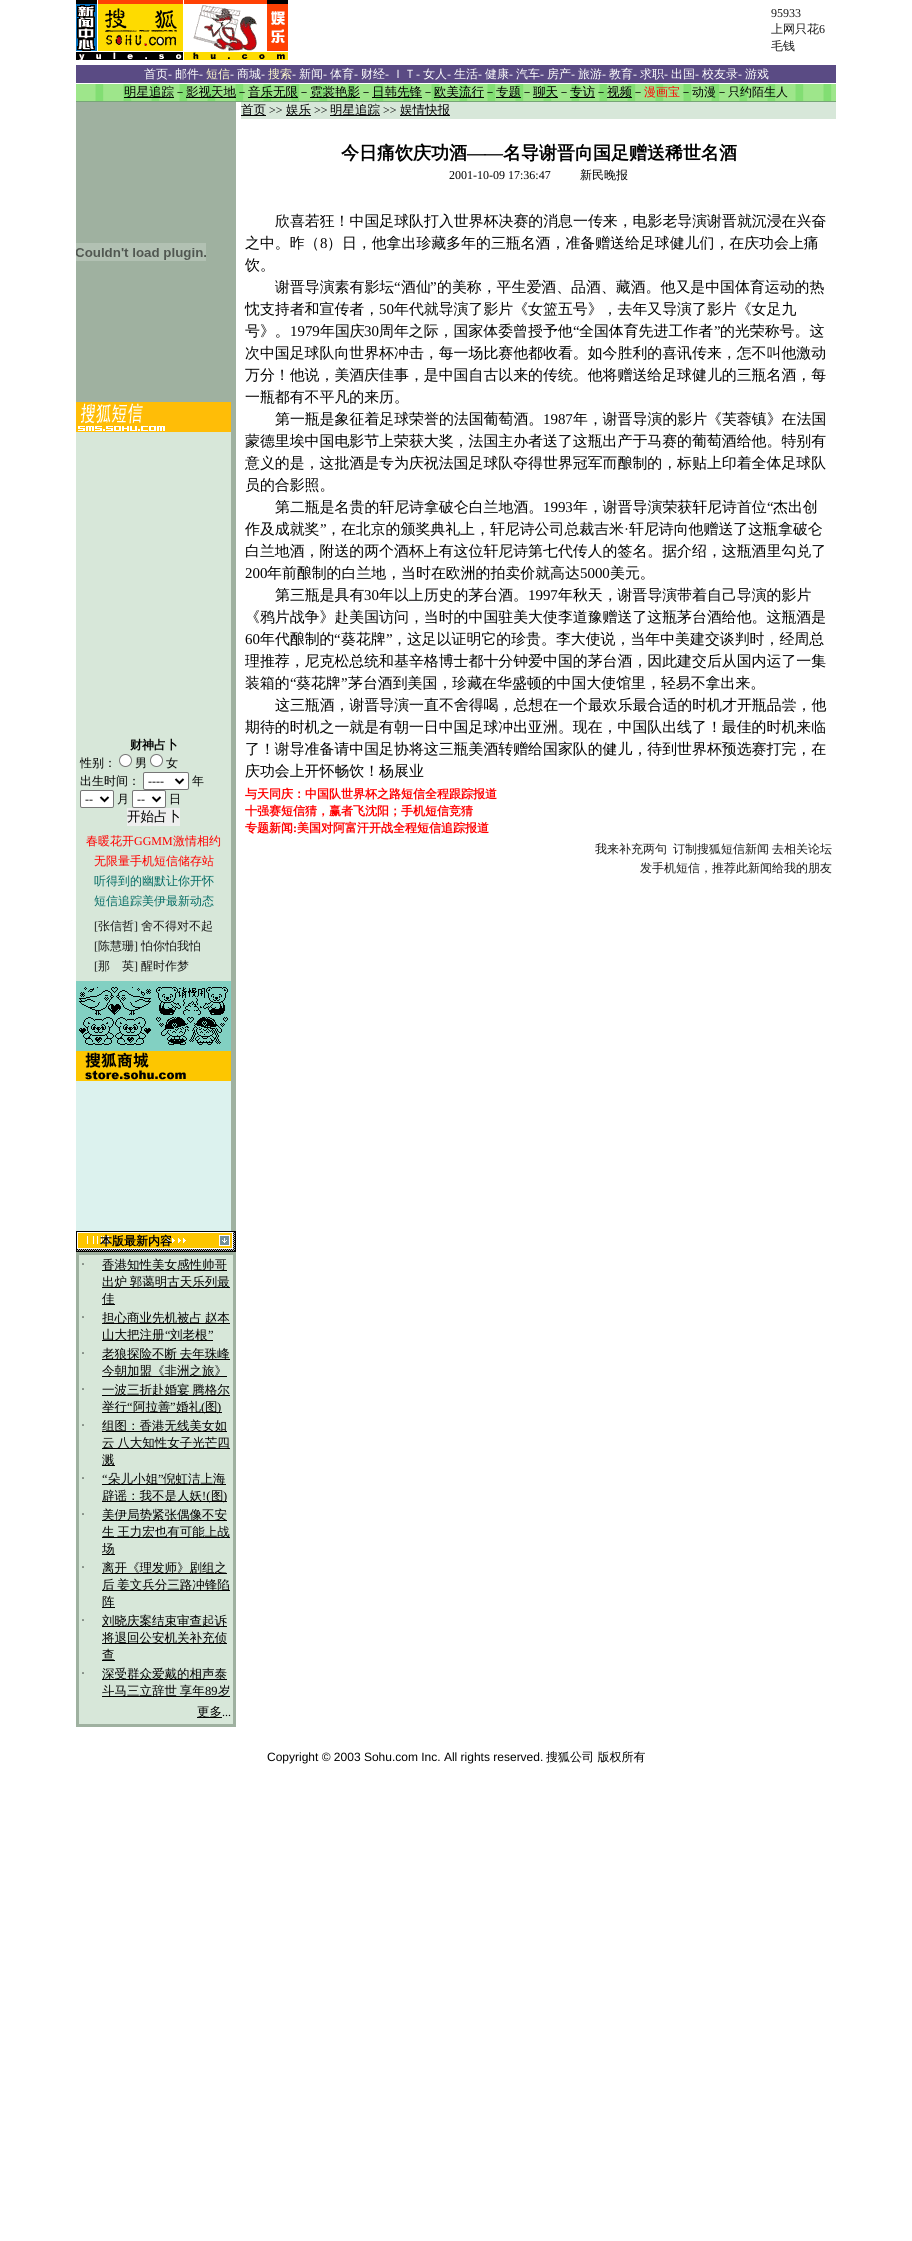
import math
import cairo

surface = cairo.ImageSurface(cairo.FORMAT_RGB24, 912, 2241)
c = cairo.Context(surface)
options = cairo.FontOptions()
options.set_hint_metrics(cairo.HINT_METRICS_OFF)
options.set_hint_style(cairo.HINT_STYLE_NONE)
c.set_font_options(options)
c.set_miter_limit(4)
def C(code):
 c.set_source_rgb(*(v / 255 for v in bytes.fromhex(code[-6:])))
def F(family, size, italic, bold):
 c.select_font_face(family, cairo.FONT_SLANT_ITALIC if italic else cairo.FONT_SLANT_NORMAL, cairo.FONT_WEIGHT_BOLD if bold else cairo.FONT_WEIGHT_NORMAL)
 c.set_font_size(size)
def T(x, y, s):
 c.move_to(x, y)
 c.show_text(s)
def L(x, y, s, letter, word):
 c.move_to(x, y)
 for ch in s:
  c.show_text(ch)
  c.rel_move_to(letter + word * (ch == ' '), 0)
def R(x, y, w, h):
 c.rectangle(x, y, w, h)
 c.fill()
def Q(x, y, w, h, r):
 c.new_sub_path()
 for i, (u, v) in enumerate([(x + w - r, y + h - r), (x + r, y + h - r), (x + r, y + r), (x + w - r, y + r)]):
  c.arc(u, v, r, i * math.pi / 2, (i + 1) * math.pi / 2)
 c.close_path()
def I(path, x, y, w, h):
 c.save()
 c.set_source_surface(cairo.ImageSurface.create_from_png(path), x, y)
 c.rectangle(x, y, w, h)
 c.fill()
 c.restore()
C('ffffff')
c.paint()
I('1.png',76,0,212,60)
F('Liberation Serif',12,0,0)
C('191919')
T(771,17,'95933')
F('WenQuanYi Zen Hei Medium',12,0,0)
T(771,33,'上网只花')
F('Liberation Serif',12,0,0)
T(819,33,'6')
F('WenQuanYi Zen Hei Medium',12,0,0)
T(771,50,'毛钱')
C('5a4b84')
R(76,65,760,18)
C('ffffff')
T(144,78,'首页')
F('Liberation Serif',12,0,0)
T(168,78,'-')
F('WenQuanYi Zen Hei Medium',12,0,0)
T(175,78,'邮件')
F('Liberation Serif',12,0,0)
T(199,78,'-')
F('WenQuanYi Zen Hei Medium',12,0,0)
C('fffccc')
T(206,78,'短信')
F('Liberation Serif',12,0,0)
C('ffffff')
T(230,78,'-')
F('WenQuanYi Zen Hei Medium',12,0,0)
T(237,78,'商城')
F('Liberation Serif',12,0,0)
T(261,78,'-')
F('WenQuanYi Zen Hei Medium',12,0,0)
C('fffccc')
T(268,78,'搜索')
F('Liberation Serif',12,0,0)
C('ffffff')
T(292,78,'-')
F('WenQuanYi Zen Hei Medium',12,0,0)
T(299,78,'新闻')
F('Liberation Serif',12,0,0)
T(323,78,'-')
F('WenQuanYi Zen Hei Medium',12,0,0)
T(330,78,'体育')
F('Liberation Serif',12,0,0)
T(354,78,'-')
F('WenQuanYi Zen Hei Medium',12,0,0)
T(361,78,'财经')
F('Liberation Serif',12,0,0)
T(385,78,'-')
F('WenQuanYi Zen Hei Medium',12,0,0)
T(392,78,'ＩＴ')
F('Liberation Serif',12,0,0)
T(416,78,'-')
F('WenQuanYi Zen Hei Medium',12,0,0)
T(423,78,'女人')
F('Liberation Serif',12,0,0)
T(447,78,'-')
F('WenQuanYi Zen Hei Medium',12,0,0)
T(454,78,'生活')
F('Liberation Serif',12,0,0)
T(478,78,'-')
F('WenQuanYi Zen Hei Medium',12,0,0)
T(485,78,'健康')
F('Liberation Serif',12,0,0)
T(509,78,'-')
F('WenQuanYi Zen Hei Medium',12,0,0)
T(516,78,'汽车')
F('Liberation Serif',12,0,0)
T(540,78,'-')
F('WenQuanYi Zen Hei Medium',12,0,0)
T(547,78,'房产')
F('Liberation Serif',12,0,0)
T(571,78,'-')
F('WenQuanYi Zen Hei Medium',12,0,0)
T(578,78,'旅游')
F('Liberation Serif',12,0,0)
T(602,78,'-')
F('WenQuanYi Zen Hei Medium',12,0,0)
T(609,78,'教育')
F('Liberation Serif',12,0,0)
T(633,78,'-')
F('WenQuanYi Zen Hei Medium',12,0,0)
T(640,78,'求职')
F('Liberation Serif',12,0,0)
T(664,78,'-')
F('WenQuanYi Zen Hei Medium',12,0,0)
T(671,78,'出国')
F('Liberation Serif',12,0,0)
T(695,78,'-')
F('WenQuanYi Zen Hei Medium',12,0,0)
T(702,78,'校友录')
F('Liberation Serif',12,0,0)
T(738,78,'-')
F('WenQuanYi Zen Hei Medium',12,0,0)
T(745,78,'游戏')
I('2.png',76,84,760,17)
C('000000')
R(124,97,50,1)
F('WenQuanYi Zen Hei Medium',12.5,0,0)
T(124,96,'明星追踪')
F('WenQuanYi Zen Hei Medium',12,0,0)
T(174,96,'－')
R(186,97,50,1)
F('WenQuanYi Zen Hei Medium',12.5,0,0)
T(186,96,'影视天地')
F('WenQuanYi Zen Hei Medium',12,0,0)
T(236,96,'－')
R(248,97,50,1)
F('WenQuanYi Zen Hei Medium',12.5,0,0)
T(248,96,'音乐无限')
F('WenQuanYi Zen Hei Medium',12,0,0)
T(298,96,'－')
R(310,97,50,1)
F('WenQuanYi Zen Hei Medium',12.5,0,0)
T(310,96,'霓裳艳影')
F('WenQuanYi Zen Hei Medium',12,0,0)
T(360,96,'－')
R(372,97,50,1)
F('WenQuanYi Zen Hei Medium',12.5,0,0)
T(372,96,'日韩先锋')
F('WenQuanYi Zen Hei Medium',12,0,0)
T(422,96,'－')
R(434,97,50,1)
F('WenQuanYi Zen Hei Medium',12.5,0,0)
T(434,96,'欧美流行')
F('WenQuanYi Zen Hei Medium',12,0,0)
T(484,96,'－')
R(496,97,25,1)
F('WenQuanYi Zen Hei Medium',12.5,0,0)
T(496,96,'专题')
F('WenQuanYi Zen Hei Medium',12,0,0)
T(521,96,'－')
R(533,97,25,1)
F('WenQuanYi Zen Hei Medium',12.5,0,0)
T(533,96,'聊天')
F('WenQuanYi Zen Hei Medium',12,0,0)
T(558,96,'－')
R(570,97,25,1)
F('WenQuanYi Zen Hei Medium',12.5,0,0)
T(570,96,'专访')
F('WenQuanYi Zen Hei Medium',12,0,0)
T(595,96,'－')
R(607,97,25,1)
F('WenQuanYi Zen Hei Medium',12.5,0,0)
T(607,96,'视频')
F('WenQuanYi Zen Hei Medium',12,0,0)
T(632,96,'－')
C('ff0000')
T(644,96,'漫画宝')
C('000000')
T(680,96,'－动漫－只约陌生人')
C('76a577')
R(76,101,760,1)
C('d7e7d9')
R(241,102,595,17)
C('000000')
R(241,115,25,1)
F('WenQuanYi Zen Hei Medium',12.5,0,0)
T(241,114,'首页')
F('Liberation Serif',12,0,0)
T(269,114,'>>')
R(286,115,25,1)
F('WenQuanYi Zen Hei Medium',12.5,0,0)
T(286,114,'娱乐')
F('Liberation Serif',12,0,0)
T(314,114,'>>')
R(330,115,50,1)
F('WenQuanYi Zen Hei Medium',12.5,0,0)
T(330,114,'明星追踪')
F('Liberation Serif',12,0,0)
T(383,114,'>>')
R(400,115,50,1)
F('WenQuanYi Zen Hei Medium',12.5,0,0)
T(400,114,'娱情快报')
F('WenQuanYi Zen Hei',18,0,1)
T(341,159,'今日痛饮庆功酒')
F('Liberation Serif',18,0,1)
T(467,159,'——')
F('WenQuanYi Zen Hei',18,0,1)
T(503,159,'名导谢晋向国足赠送稀世名酒')
F('Liberation Serif',12,0,0)
T(449,179,'2001-10-09 17:36:47')
F('WenQuanYi Zen Hei Medium',12,0,0)
T(580,179,'新民晚报')
F('WenQuanYi Zen Hei Medium',14.9,0,0)
T(275,226,'欣喜若狂！中国足球队打入世界杯决赛的消息一传来，电影老导演谢晋就沉浸在兴奋')
T(245,248,'之中。昨（')
F('Liberation Serif',14.9,0,0)
T(320,248,'8')
F('WenQuanYi Zen Hei Medium',14.9,0,0)
T(327,248,'）日，他拿出珍藏多年的三瓶名酒，准备赠送给足球健儿们，在庆功会上痛')
T(245,270,'饮。')
T(275,292,'谢晋导演素有影坛')
F('Liberation Serif',14.9,0,0)
T(394,292,'“')
F('WenQuanYi Zen Hei Medium',14.9,0,0)
T(401,292,'酒仙')
F('Liberation Serif',14.9,0,0)
T(430,292,'”')
F('WenQuanYi Zen Hei Medium',14.9,0,0)
T(437,292,'的美称，平生爱酒、品酒、藏酒。他又是中国体育运动的热')
T(245,314,'忱支持者和宣传者，')
F('Liberation Serif',14.9,0,0)
T(379,314,'50')
F('WenQuanYi Zen Hei Medium',14.9,0,0)
T(394,314,'年代就导演了影片《女篮五号》，去年又导演了影片《女足九')
T(245,336,'号》。')
F('Liberation Serif',14.9,0,0)
T(290,336,'1979')
F('WenQuanYi Zen Hei Medium',14.9,0,0)
T(320,336,'年国庆')
F('Liberation Serif',14.9,0,0)
T(364,336,'30')
F('WenQuanYi Zen Hei Medium',14.9,0,0)
T(379,336,'周年之际，国家体委曾授予他')
F('Liberation Serif',14.9,0,0)
T(573,336,'“')
F('WenQuanYi Zen Hei Medium',14.9,0,0)
T(579,336,'全国体育先进工作者')
F('Liberation Serif',14.9,0,0)
T(714,336,'”')
F('WenQuanYi Zen Hei Medium',14.9,0,0)
T(720,336,'的光荣称号。这')
T(245,358,'次中国足球队向世界杯冲击，每一场比赛他都收看。如今胜利的喜讯传来，怎不叫他激动')
T(245,380,'万分！他说，美酒庆佳事，是中国自古以来的传统。他将赠送给足球健儿的三瓶名酒，每')
T(245,402,'一瓶都有不平凡的来历。')
T(275,424,'第一瓶是象征着足球荣誉的法国葡萄酒。')
F('Liberation Serif',14.9,0,0)
T(543,424,'1987')
F('WenQuanYi Zen Hei Medium',14.9,0,0)
T(573,424,'年，谢晋导演的影片《芙蓉镇》在法国')
T(245,446,'蒙德里埃中国电影节上荣获大奖，法国主办者送了这瓶出产于马赛的葡萄酒给他。特别有')
T(245,468,'意义的是，这批酒是专为庆祝法国足球队夺得世界冠军而酿制的，标贴上印着全体足球队')
T(245,490,'员的合影照。')
T(275,512,'第二瓶是名贵的轩尼诗拿破仑白兰地酒。')
F('Liberation Serif',14.9,0,0)
T(543,512,'1993')
F('WenQuanYi Zen Hei Medium',14.9,0,0)
T(573,512,'年，谢晋导演荣获轩尼诗首位')
F('Liberation Serif',14.9,0,0)
T(767,512,'“')
F('WenQuanYi Zen Hei Medium',14.9,0,0)
T(773,512,'杰出创')
T(245,534,'作及成就奖')
F('Liberation Serif',14.9,0,0)
T(320,534,'”')
F('WenQuanYi Zen Hei Medium',14.9,0,0)
T(326,534,'，在北京的颁奖典礼上，轩尼诗公司总裁吉米')
T(629,534,'轩尼诗向他赠送了这瓶拿破仑')
F('Liberation Serif',14.9,0,0)
T(624,534,'·')
F('WenQuanYi Zen Hei Medium',14.9,0,0)
T(245,556,'白兰地酒，附送的两个酒杯上有这位轩尼诗第七代传人的签名。据介绍，这瓶酒里勾兑了')
F('Liberation Serif',14.9,0,0)
T(245,578,'200')
F('WenQuanYi Zen Hei Medium',14.9,0,0)
T(267,578,'年前酿制的白兰地，当时在欧洲的拍卖价就高达')
F('Liberation Serif',14.9,0,0)
T(580,578,'5000')
F('WenQuanYi Zen Hei Medium',14.9,0,0)
T(610,578,'美元。')
T(275,600,'第三瓶是具有')
F('Liberation Serif',14.9,0,0)
T(364,600,'30')
F('WenQuanYi Zen Hei Medium',14.9,0,0)
T(379,600,'年以上历史的茅台酒。')
F('Liberation Serif',14.9,0,0)
T(528,600,'1997')
F('WenQuanYi Zen Hei Medium',14.9,0,0)
T(558,600,'年秋天，谢晋导演带着自己导演的影片')
T(245,622,'《鸦片战争》赴美国访问，当时的中国驻美大使李道豫赠送了这瓶茅台酒给他。这瓶酒是')
F('Liberation Serif',14.9,0,0)
T(245,644,'60')
F('WenQuanYi Zen Hei Medium',14.9,0,0)
T(260,644,'年代酿制的')
F('Liberation Serif',14.9,0,0)
T(334,644,'“')
F('WenQuanYi Zen Hei Medium',14.9,0,0)
T(341,644,'葵花牌')
F('Liberation Serif',14.9,0,0)
T(386,644,'”')
F('WenQuanYi Zen Hei Medium',14.9,0,0)
T(392,644,'，这足以证明它的珍贵。李大使说，当年中美建交谈判时，经周总')
T(245,666,'理推荐，尼克松总统和基辛格博士都十分钟爱中国的茅台酒，因此建交后从国内运了一集')
T(245,688,'装箱的')
F('Liberation Serif',14.9,0,0)
T(290,688,'“')
F('WenQuanYi Zen Hei Medium',14.9,0,0)
T(296,688,'葵花牌')
F('Liberation Serif',14.9,0,0)
T(341,688,'”')
F('WenQuanYi Zen Hei Medium',14.9,0,0)
T(348,688,'茅台酒到美国，珍藏在华盛顿的中国大使馆里，轻易不拿出来。')
T(275,710,'这三瓶酒，谢晋导演一直不舍得喝，总想在一个最欢乐最合适的时机才开瓶品尝，他')
T(245,732,'期待的时机之一就是有朝一日中国足球冲出亚洲。现在，中国队出线了！最佳的时机来临')
T(245,754,'了！谢导准备请中国足协将这三瓶美酒转赠给国家队的健儿，待到世界杯预选赛打完，在')
T(245,776,'庆功会上开怀畅饮！杨展业')
F('WenQuanYi Zen Hei',12,0,1)
C('ff0000')
T(245,798,'与天同庆：中国队世界杯之路短信全程跟踪报道')
T(245,815,'十强赛短信猜，赢者飞沈阳；手机短信竞猜')
T(245,832,'专题新闻')
F('Liberation Serif',12,0,1)
T(293,832,':')
F('WenQuanYi Zen Hei',12,0,1)
T(297,832,'美国对阿富汗开战全程短信追踪报道')
F('WenQuanYi Zen Hei Medium',12,0,0)
C('191919')
T(595,853,'我来补充两句')
T(673,853,'订制搜狐短信新闻')
T(772,853,'去相关论坛')
T(640,872,'发手机短信，推荐此新闻给我的朋友')
C('9fb1a0')
R(76,102,160,1625)
I('3.png',76,243,130,18)
C('d7e7d9')
R(76,432,155,549)
I('4.png',76,402,155,30)
F('WenQuanYi Zen Hei',12,0,1)
C('000000')
T(130,749,'财神占卜')
F('WenQuanYi Zen Hei Medium',12,0,0)
T(80,767,'性别：')
C('ffffff')
c.new_path()
c.arc(125.5,760.5,6,0,2 * math.pi)
c.fill_preserve()
C('767676')
c.set_line_width(1)
c.stroke()
C('000000')
T(135,767,'男')
C('ffffff')
c.new_path()
c.arc(156.5,760.5,6,0,2 * math.pi)
c.fill_preserve()
C('767676')
c.stroke()
C('000000')
T(166,767,'女')
T(80,785,'出生时间：')
C('ffffff')
Q(143.5,772.5,45,17,1.5)
c.fill_preserve()
C('767676')
c.stroke()
c.new_path()
c.move_to(175.5,779)
c.line_to(179.5,783)
c.line_to(183.5,779)
C('000000')
c.set_line_width(2)
c.stroke()
F('Liberation Serif',12,0,0)
T(148,785,'----')
F('WenQuanYi Zen Hei Medium',12,0,0)
T(192,785,'年')
C('ffffff')
Q(80.5,790.5,33,17,1.5)
c.fill_preserve()
C('767676')
c.set_line_width(1)
c.stroke()
c.new_path()
c.move_to(100.5,797)
c.line_to(104.5,801)
c.line_to(108.5,797)
C('000000')
c.set_line_width(2)
c.stroke()
F('Liberation Serif',12,0,0)
T(85,803,'--')
F('WenQuanYi Zen Hei Medium',12,0,0)
T(117,803,'月')
C('ffffff')
Q(132.5,790.5,33,17,1.5)
c.fill_preserve()
C('767676')
c.set_line_width(1)
c.stroke()
c.new_path()
c.move_to(152.5,797)
c.line_to(156.5,801)
c.line_to(160.5,797)
C('000000')
c.set_line_width(2)
c.stroke()
F('Liberation Serif',12,0,0)
T(137,803,'--')
F('WenQuanYi Zen Hei Medium',12,0,0)
T(169,803,'日')
C('efefef')
R(127,808,53,18)
F('WenQuanYi Zen Hei Medium',13.5,0,0)
C('000000')
T(127,821,'开始占卜')
F('WenQuanYi Zen Hei Medium',12,0,0)
C('ff0000')
T(86,845,'春暖花开')
F('Liberation Serif',12,0,0)
T(134,845,'GGMM')
F('WenQuanYi Zen Hei Medium',12,0,0)
T(173,845,'激情相约')
T(94,865,'无限量手机短信储存站')
C('036b64')
T(94,885,'听得到的幽默让你开怀')
T(94,905,'短信追踪美伊最新动态')
F('Liberation Serif',12,0,0)
C('191919')
T(94,930,'[')
F('WenQuanYi Zen Hei Medium',12,0,0)
T(98,930,'张信哲')
F('Liberation Serif',12,0,0)
T(134,930,']')
F('WenQuanYi Zen Hei Medium',12,0,0)
T(141,930,'舍不得对不起')
F('Liberation Serif',12,0,0)
T(94,950,'[')
F('WenQuanYi Zen Hei Medium',12,0,0)
T(98,950,'陈慧珊')
F('Liberation Serif',12,0,0)
T(134,950,']')
F('WenQuanYi Zen Hei Medium',12,0,0)
T(141,950,'怕你怕我怕')
F('Liberation Serif',12,0,0)
T(94,970,'[')
F('WenQuanYi Zen Hei Medium',12,0,0)
T(98,970,'那　英')
F('Liberation Serif',12,0,0)
T(134,970,']')
F('WenQuanYi Zen Hei Medium',12,0,0)
T(141,970,'醒时作梦')
C('82d0c2')
R(76,981,155,70)
I('5.png',79,987,72,28)
I('6.png',156,987,72,28)
I('7.png',79,1017,72,28)
I('8.png',156,1017,72,28)
C('dcf2ee')
R(76,1081,155,150)
I('9.png',76,1051,155,30)
I('10.png',76,1231,160,21)
F('WenQuanYi Zen Hei',12,0,1)
C('000000')
T(100,1245,'本版最新内容')
C('d7e7d9')
R(79,1255,154,469)
F('Liberation Serif',12,0,0)
C('000000')
T(81,1268,'·')
R(102,1270,125,1)
F('WenQuanYi Zen Hei Medium',12.5,0,0)
T(102,1269,'香港知性美女感性帅哥')
R(102,1287,128,1)
L(102,1286,'出炉 郭蔼明古天乐列最',0,-1)
R(102,1304,13,1)
T(102,1303,'佳')
F('Liberation Serif',12,0,0)
T(81,1321,'·')
R(102,1323,128,1)
F('WenQuanYi Zen Hei Medium',12.5,0,0)
L(102,1322,'担心商业先机被占 赵本',0,-1)
R(102,1340,111,1)
T(102,1339,'山大把注册')
F('Liberation Serif',12.5,0,0)
T(165,1339,'“')
F('WenQuanYi Zen Hei Medium',12.5,0,0)
T(170,1339,'刘老根')
F('Liberation Serif',12.5,0,0)
T(208,1339,'”')
F('Liberation Serif',12,0,0)
T(81,1357,'·')
R(102,1359,128,1)
F('WenQuanYi Zen Hei Medium',12.5,0,0)
L(102,1358,'老狼探险不断 去年珠峰',0,-1)
R(102,1376,125,1)
T(102,1375,'今朝加盟《非洲之旅》')
F('Liberation Serif',12,0,0)
T(81,1393,'·')
R(102,1395,128,1)
F('WenQuanYi Zen Hei Medium',12.5,0,0)
L(102,1394,'一波三折赴婚宴 腾格尔',0,-1)
R(102,1412,120,1)
T(102,1411,'举行')
F('Liberation Serif',12.5,0,0)
T(127,1411,'“')
F('WenQuanYi Zen Hei Medium',12.5,0,0)
T(133,1411,'阿拉善')
F('Liberation Serif',12.5,0,0)
T(170,1411,'”')
F('WenQuanYi Zen Hei Medium',12.5,0,0)
T(176,1411,'婚礼')
F('Liberation Serif',12.5,0,0)
T(201,1411,'(')
F('WenQuanYi Zen Hei Medium',12.5,0,0)
T(205,1411,'图')
F('Liberation Serif',12.5,0,0)
T(217,1411,')')
F('Liberation Serif',12,0,0)
T(81,1429,'·')
R(102,1431,125,1)
F('WenQuanYi Zen Hei Medium',12.5,0,0)
T(102,1430,'组图：香港无线美女如')
R(102,1448,128,1)
L(102,1447,'云 八大知性女子光芒四',0,-1)
R(102,1465,13,1)
T(102,1464,'溅')
F('Liberation Serif',12,0,0)
T(81,1482,'·')
F('Liberation Serif',12.5,0,0)
T(102,1483,'“')
R(102,1484,124,1)
F('WenQuanYi Zen Hei Medium',12.5,0,0)
T(108,1483,'朵儿小姐')
F('Liberation Serif',12.5,0,0)
T(158,1483,'”')
F('WenQuanYi Zen Hei Medium',12.5,0,0)
T(163,1483,'倪虹洁上海')
R(102,1501,125,1)
T(102,1500,'辟谣：我不是人妖')
F('Liberation Serif',12.5,0,0)
T(202,1500,'!(')
F('WenQuanYi Zen Hei Medium',12.5,0,0)
T(211,1500,'图')
F('Liberation Serif',12.5,0,0)
T(223,1500,')')
F('Liberation Serif',12,0,0)
T(81,1518,'·')
R(102,1520,125,1)
F('WenQuanYi Zen Hei Medium',12.5,0,0)
T(102,1519,'美伊局势紧张偶像不安')
R(102,1537,128,1)
L(102,1536,'生 王力宏也有可能上战',0,-1)
R(102,1554,13,1)
T(102,1553,'场')
F('Liberation Serif',12,0,0)
T(81,1571,'·')
R(102,1573,125,1)
F('WenQuanYi Zen Hei Medium',12.5,0,0)
T(102,1572,'离开《理发师》剧组之')
R(102,1590,128,1)
L(102,1589,'后 姜文兵分三路冲锋陷',0,-1)
R(102,1607,13,1)
T(102,1606,'阵')
F('Liberation Serif',12,0,0)
T(81,1624,'·')
R(102,1626,125,1)
F('WenQuanYi Zen Hei Medium',12.5,0,0)
T(102,1625,'刘晓庆案结束审查起诉')
R(102,1643,125,1)
T(102,1642,'将退回公安机关补充侦')
T(102,1659,'查')
R(102,1660,13,1)
F('Liberation Serif',12,0,0)
T(81,1677,'·')
R(102,1679,125,1)
F('WenQuanYi Zen Hei Medium',12.5,0,0)
T(102,1678,'深受群众爱戴的相声泰')
R(102,1696,128,1)
L(102,1695,'斗马三立辞世 享年',0,-1)
F('Liberation Serif',12.5,0,0)
T(205,1695,'89')
F('WenQuanYi Zen Hei Medium',12.5,0,0)
T(218,1695,'岁')
R(197,1717,25,1)
T(197,1716,'更多')
F('Liberation Serif',12,0,0)
T(222,1716,'...')
F('Liberation Sans',12,0,0)
T(267,1761,'Copyright © 2003 Sohu.com Inc. All rights reserved.')
F('WenQuanYi Zen Hei Medium',12,0,0)
T(546,1761,'搜狐公司 版权所有')
surface.write_to_png('o.png')
